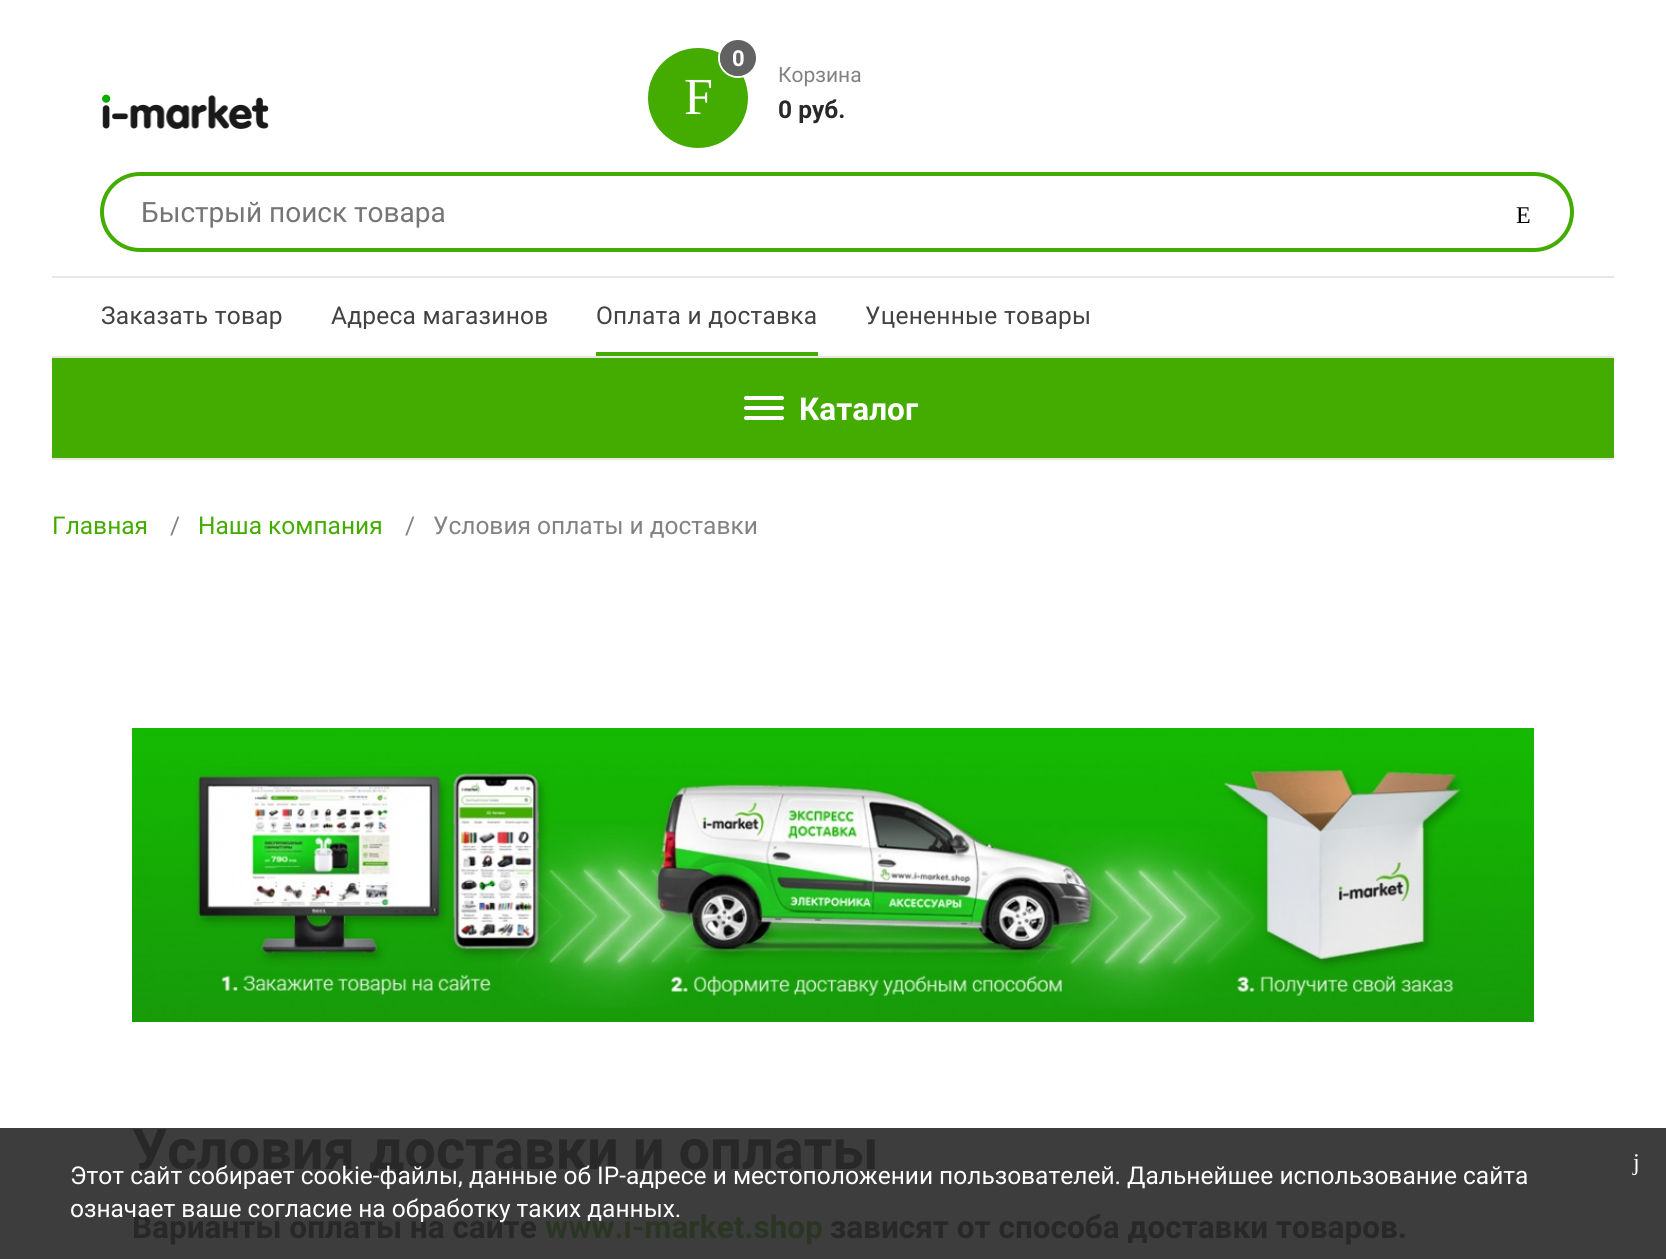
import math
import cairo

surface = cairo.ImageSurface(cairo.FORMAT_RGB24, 1666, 1259)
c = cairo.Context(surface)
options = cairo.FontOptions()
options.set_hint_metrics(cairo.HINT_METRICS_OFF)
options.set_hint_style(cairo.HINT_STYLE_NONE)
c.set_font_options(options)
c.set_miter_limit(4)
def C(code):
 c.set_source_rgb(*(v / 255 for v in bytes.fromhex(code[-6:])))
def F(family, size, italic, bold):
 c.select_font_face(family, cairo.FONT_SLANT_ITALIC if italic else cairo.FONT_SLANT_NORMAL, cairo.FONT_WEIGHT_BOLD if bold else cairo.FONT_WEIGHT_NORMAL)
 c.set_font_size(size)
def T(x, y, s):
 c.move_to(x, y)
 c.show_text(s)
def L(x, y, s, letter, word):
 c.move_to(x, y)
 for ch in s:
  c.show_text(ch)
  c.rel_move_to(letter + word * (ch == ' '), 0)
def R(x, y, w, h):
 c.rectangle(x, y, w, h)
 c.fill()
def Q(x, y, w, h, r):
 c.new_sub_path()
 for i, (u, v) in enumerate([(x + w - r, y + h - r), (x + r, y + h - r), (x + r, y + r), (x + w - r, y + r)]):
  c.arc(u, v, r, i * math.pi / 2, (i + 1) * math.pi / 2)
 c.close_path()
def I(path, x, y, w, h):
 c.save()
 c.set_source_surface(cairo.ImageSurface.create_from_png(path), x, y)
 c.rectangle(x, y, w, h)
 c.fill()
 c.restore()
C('ffffff')
c.paint()
C('3d3d3d')
R(0,1128,1666,131)
C('e7e7e7')
R(52,276,1562,2)
I('1.png',102,94,167,35)
C('44ab01')
c.arc(698,98,50,0,2 * math.pi)
c.fill()
c.arc(738,58,19,0,2 * math.pi)
C('ffffff')
c.stroke()
C('626262')
c.arc(738,58,18,0,2 * math.pi)
c.fill()
F('Roboto',22,0,1)
C('ffffff')
T(732,66,'0')
F('Liberation Serif',52,0,0)
T(684,114,'F')
F('Roboto',21,0,0)
C('828282')
T(778,82,'Корзина')
F('Roboto',24.5,0,1)
C('282828')
T(778,118,'0 руб.')
Q(102,174,1470,76,38)
C('44ab01')
c.set_line_width(4)
c.stroke()
F('Roboto',28,0,0)
C('757575')
T(141,222,'Быстрый поиск товара')
F('Liberation Serif',24,0,0)
C('000000')
T(1516,223,'E')
C('e7e7e7')
R(52,458,1562,2)
F('Roboto',24.5,0,0)
C('424242')
L(101,324,'Заказать товар',.25,0)
L(331,324,'Адреса магазинов',.25,0)
C('44ab01')
R(596,352,222,4)
C('424242')
L(596,324,'Оплата и доставка',.25,0)
L(865,324,'Уцененные товары',.25,0)
C('e7e7e7')
R(52,356,1562,2)
C('44ab01')
R(52,358,1562,100)
C('ffffff')
Q(744,396,40,4,2)
c.fill()
Q(744,406,40,4,2)
c.fill()
Q(744,416,40,4,2)
c.fill()
F('Roboto',31.5,0,1)
T(799,420,'Каталог')
F('Roboto',24.5,0,0)
C('44ab01')
T(52,534,'Главная')
C('828282')
T(170,534,'/')
C('44ab01')
T(198,534,'Наша компания')
C('828282')
T(405,534,'/')
T(433,534,'Условия оплаты и доставки')
I('2.png',132,728,1402,294)
F('Roboto',56,0,1)
C('282828')
T(132,1169,'Условия доставки и оплаты')
F('Roboto',31.5,0,1)
T(132,1238,'Варианты оплаты на сайте')
C('2b3524')
T(545,1238,'www.i-market.shop')
C('282828')
T(830,1238,'зависят от способа доставки товаров.')
F('Roboto',24.5,0,0)
C('ffffff')
T(70,1184,'Этот сайт собирает cookie-файлы, данные об IP-адресе и местоположении пользователей. Дальнейшее использование сайта')
T(70,1217,'означает ваше согласие на обработку таких данных.')
F('Liberation Serif',24,0,0)
T(1633,1170,'j')
surface.write_to_png('o.png')
